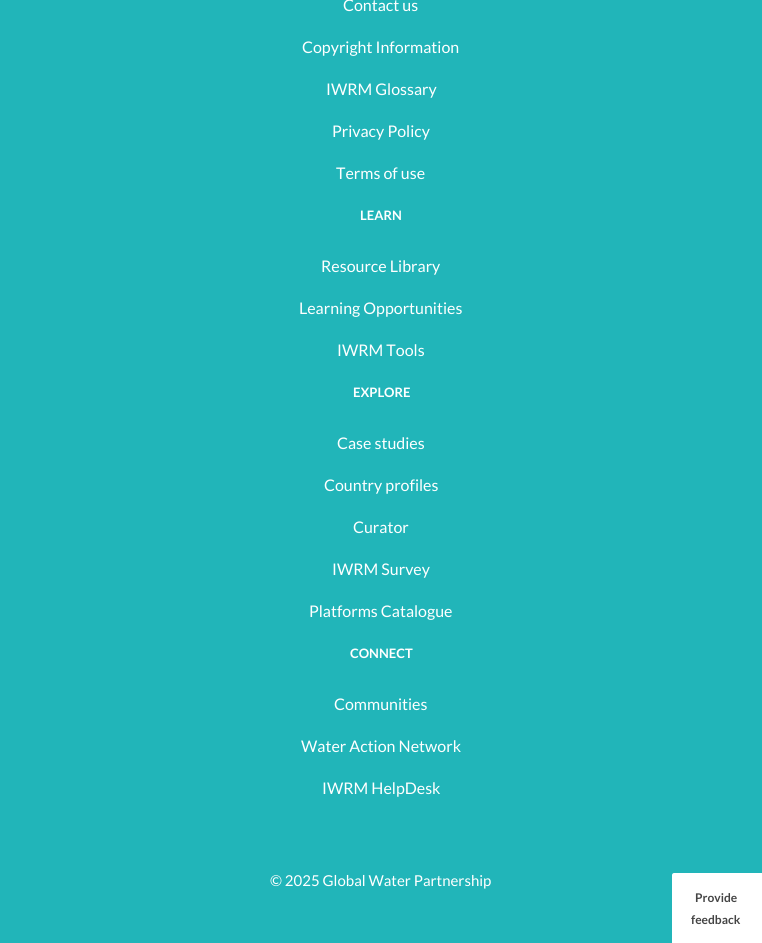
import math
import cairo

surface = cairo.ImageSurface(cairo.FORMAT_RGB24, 762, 943)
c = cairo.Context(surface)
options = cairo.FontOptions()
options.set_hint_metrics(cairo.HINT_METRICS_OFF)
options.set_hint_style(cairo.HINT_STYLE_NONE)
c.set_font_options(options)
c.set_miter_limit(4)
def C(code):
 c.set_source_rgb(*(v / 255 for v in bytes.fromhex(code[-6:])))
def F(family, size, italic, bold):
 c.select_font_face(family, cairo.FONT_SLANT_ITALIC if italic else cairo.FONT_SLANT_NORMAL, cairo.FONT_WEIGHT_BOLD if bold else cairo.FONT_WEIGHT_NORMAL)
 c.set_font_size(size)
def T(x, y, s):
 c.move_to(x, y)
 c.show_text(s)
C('21b5b9')
c.paint()
F('Lato',16,0,0)
C('ffffff')
T(343,11,'Contact us')
T(302,53,'Copyright Information')
T(326,95,'IWRM Glossary')
T(332,137,'Privacy Policy')
T(336,179,'Terms of use')
F('Lato',13,0,1)
T(360,220,'LEARN')
F('Lato',16,0,0)
T(321,272,'Resource Library')
T(299,314,'Learning Opportunities')
T(337,356,'IWRM Tools')
F('Lato',13,0,1)
T(353,397,'EXPLORE')
F('Lato',16,0,0)
T(337,449,'Case studies')
T(324,491,'Country profiles')
T(353,533,'Curator')
T(332,575,'IWRM Survey')
T(309,617,'Platforms Catalogue')
F('Lato',13,0,1)
T(350,658,'CONNECT')
F('Lato',16,0,0)
T(334,710,'Communities')
T(301,752,'Water Action Network')
T(322,794,'IWRM HelpDesk')
F('Lato',15,0,0)
T(270,886,'© 2025 Global Water Partnership')
c.new_path()
c.move_to(674,873)
c.line_to(762,873)
c.line_to(762,943)
c.line_to(672,943)
c.line_to(672,875)
c.curve_to(672,874,673,873,674,873)
c.close_path()
c.fill()
F('Lato',12,0,1)
C('444444')
T(695,902,'Provide')
T(691,924,'feedback')
surface.write_to_png('o.png')
